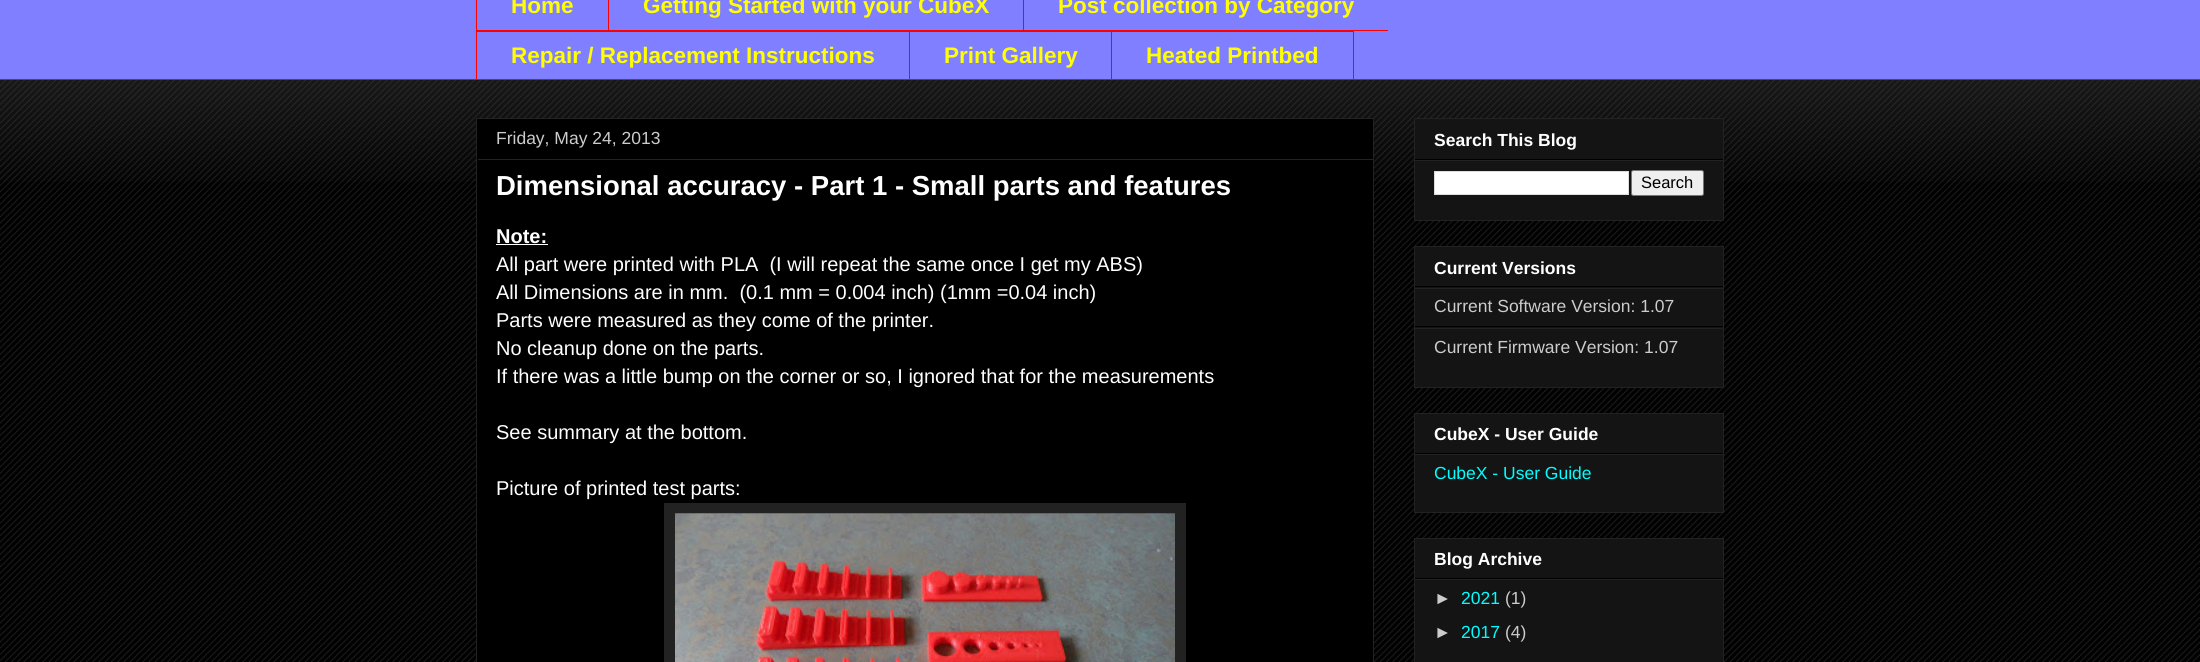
import math
import cairo

surface = cairo.ImageSurface(cairo.FORMAT_RGB24, 2200, 662)
c = cairo.Context(surface)
options = cairo.FontOptions()
options.set_hint_metrics(cairo.HINT_METRICS_OFF)
options.set_hint_style(cairo.HINT_STYLE_NONE)
c.set_font_options(options)
c.set_miter_limit(4)
def C(code):
 c.set_source_rgb(*(v / 255 for v in bytes.fromhex(code[-6:])))
def F(family, size, italic, bold):
 c.select_font_face(family, cairo.FONT_SLANT_ITALIC if italic else cairo.FONT_SLANT_NORMAL, cairo.FONT_WEIGHT_BOLD if bold else cairo.FONT_WEIGHT_NORMAL)
 c.set_font_size(size)
def T(x, y, s):
 c.move_to(x, y)
 c.show_text(s)
def R(x, y, w, h):
 c.rectangle(x, y, w, h)
 c.fill()
def Q(x, y, w, h, r):
 c.new_sub_path()
 for i, (u, v) in enumerate([(x + w - r, y + h - r), (x + r, y + h - r), (x + r, y + r), (x + w - r, y + r)]):
  c.arc(u, v, r, i * math.pi / 2, (i + 1) * math.pi / 2)
 c.close_path()
def I(path, x, y, w, h):
 c.save()
 c.set_source_surface(cairo.ImageSurface.create_from_png(path), x, y)
 c.rectangle(x, y, w, h)
 c.fill()
 c.restore()
C('000000')
c.paint()
I('1.png',0,80,2200,582)
C('7f7fff')
R(0,0,2200,79)
C('ff0000')
R(476,30,912,1)
R(476,0,1,31)
F('Liberation Sans',22.5,0,1)
C('ffff00')
T(511,13,'Home')
C('ff0000')
R(608,0,1,31)
C('ffff00')
T(643,13,'Getting Started with your CubeX')
C('ff0000')
R(1023,0,1,31)
C('ffff00')
T(1058,13,'Post collection by Category')
C('ff0000')
R(476,31,635,1)
R(476,31,1,49)
C('ffff00')
T(511,63,'Repair / Replacement Instructions')
C('ff0000')
R(909,31,1,49)
C('ffff00')
T(944,63,'Print Gallery')
c.rectangle(1111.5,31.5,242,48)
C('ff0000')
c.set_line_width(1)
c.stroke()
C('ffff00')
T(1146,63,'Heated Printbed')
C('ff0000')
R(0,79,2200,1)
I('3.png',0,80,2200,102)
C('000000')
c.rectangle(476.5,118.5,897,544)
c.fill_preserve()
C('222222')
c.stroke()
F('Liberation Sans',17.5,0,0)
C('cccccc')
T(496,144,'Friday, May 24, 2013')
C('222222')
R(478,159,895,1)
F('Liberation Sans',27.5,0,1)
C('ffffff')
T(496,195,'Dimensional accuracy - Part 1 - Small parts and features')
F('Liberation Sans',20,0,1)
T(496,243,'Note:')
R(496,244,52,1)
F('Liberation Sans',20,0,0)
T(496,271,'All part were printed with PLA  (I will repeat the same once I get my ABS)')
T(496,299,'All Dimensions are in mm.  (0.1 mm = 0.004 inch) (1mm =0.04 inch)')
T(496,327,'Parts were measured as they come of the printer.')
T(496,355,'No cleanup done on the parts.')
T(496,383,'If there was a little bump on the corner or so, I ignored that for the measurements')
T(496,439,'See summary at the bottom.')
T(496,495,'Picture of printed test parts:')
C('222222')
R(664,503,522,159)
I('2.png',675,513,500,149)
C('141414')
c.rectangle(1414.5,118.5,309,102)
c.fill_preserve()
C('222222')
c.stroke()
C('000000')
R(1415,159,308,1)
F('Liberation Sans',17.5,0,1)
C('ffffff')
T(1434,146,'Search This Blog')
C('222222')
R(1415,160,308,1)
C('ffffff')
c.rectangle(1434.5,171.5,194,23)
c.fill_preserve()
C('dddddd')
c.stroke()
C('efefef')
Q(1631.5,170.5,72,25,2)
c.fill_preserve()
C('767676')
c.stroke()
F('Liberation Sans',16.5,0,0)
C('000000')
T(1641,188,'Search')
C('141414')
c.rectangle(1414.5,246.5,309,141)
c.fill_preserve()
C('222222')
c.stroke()
C('000000')
R(1415,286,308,1)
F('Liberation Sans',17.5,0,1)
C('ffffff')
T(1434,274,'Current Versions')
C('222222')
R(1415,288,308,1)
C('000000')
R(1415,326,308,1)
F('Liberation Sans',17.5,0,0)
C('cccccc')
T(1434,312,'Current Software Version: 1.07')
C('222222')
R(1415,328,308,1)
C('cccccc')
T(1434,353,'Current Firmware Version: 1.07')
C('141414')
c.rectangle(1414.5,413.5,309,99)
c.fill_preserve()
C('222222')
c.stroke()
C('000000')
R(1415,453,308,1)
F('Liberation Sans',17.5,0,1)
C('ffffff')
T(1434,440,'CubeX - User Guide')
C('222222')
R(1415,454,308,1)
F('Liberation Sans',17.5,0,0)
C('00ffff')
T(1434,479,'CubeX - User Guide')
C('141414')
c.rectangle(1414.5,538.5,309,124)
c.fill_preserve()
C('222222')
c.stroke()
C('000000')
R(1415,578,308,1)
F('Liberation Sans',17.5,0,1)
C('ffffff')
T(1434,565,'Blog Archive')
C('222222')
R(1415,579,308,1)
F('Liberation Sans',17.5,0,0)
C('cccccc')
T(1434,604,'►')
C('00ffff')
T(1461,604,'2021')
C('cccccc')
T(1505,604,'(1)')
T(1434,638,'►')
C('00ffff')
T(1461,638,'2017')
C('cccccc')
T(1505,638,'(4)')
surface.write_to_png('o.png')
